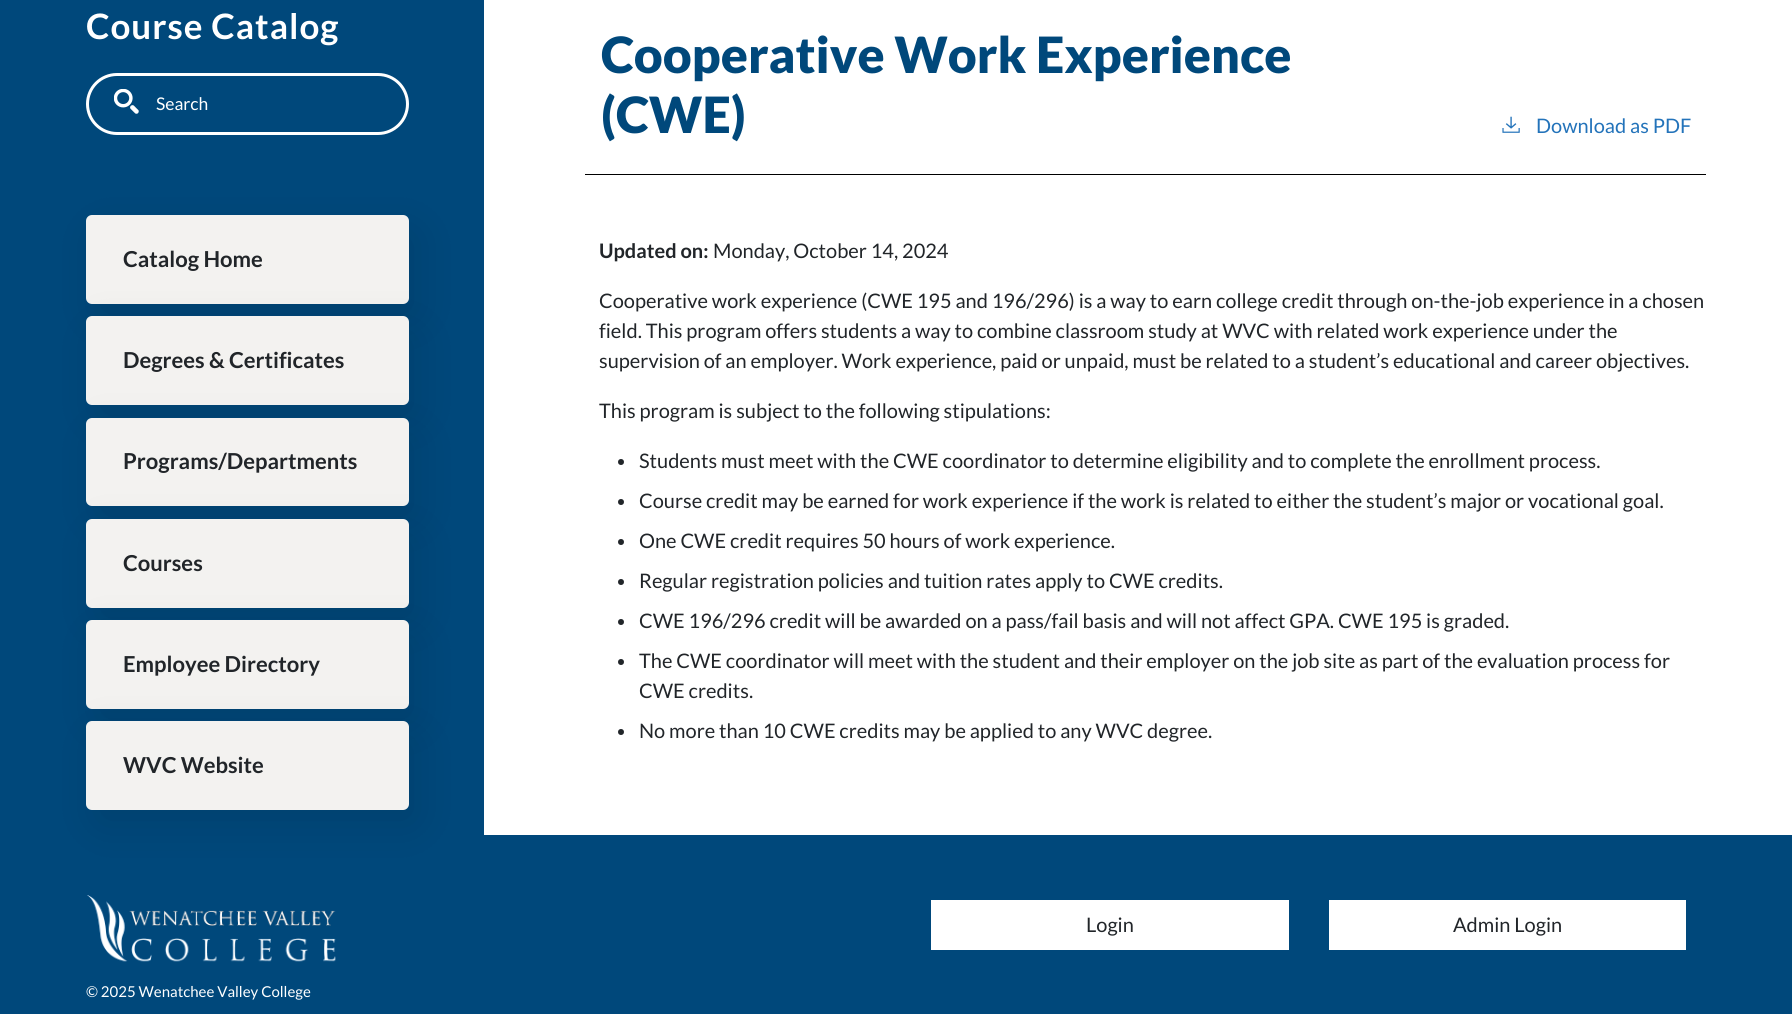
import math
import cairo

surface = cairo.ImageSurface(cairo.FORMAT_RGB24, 1792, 1014)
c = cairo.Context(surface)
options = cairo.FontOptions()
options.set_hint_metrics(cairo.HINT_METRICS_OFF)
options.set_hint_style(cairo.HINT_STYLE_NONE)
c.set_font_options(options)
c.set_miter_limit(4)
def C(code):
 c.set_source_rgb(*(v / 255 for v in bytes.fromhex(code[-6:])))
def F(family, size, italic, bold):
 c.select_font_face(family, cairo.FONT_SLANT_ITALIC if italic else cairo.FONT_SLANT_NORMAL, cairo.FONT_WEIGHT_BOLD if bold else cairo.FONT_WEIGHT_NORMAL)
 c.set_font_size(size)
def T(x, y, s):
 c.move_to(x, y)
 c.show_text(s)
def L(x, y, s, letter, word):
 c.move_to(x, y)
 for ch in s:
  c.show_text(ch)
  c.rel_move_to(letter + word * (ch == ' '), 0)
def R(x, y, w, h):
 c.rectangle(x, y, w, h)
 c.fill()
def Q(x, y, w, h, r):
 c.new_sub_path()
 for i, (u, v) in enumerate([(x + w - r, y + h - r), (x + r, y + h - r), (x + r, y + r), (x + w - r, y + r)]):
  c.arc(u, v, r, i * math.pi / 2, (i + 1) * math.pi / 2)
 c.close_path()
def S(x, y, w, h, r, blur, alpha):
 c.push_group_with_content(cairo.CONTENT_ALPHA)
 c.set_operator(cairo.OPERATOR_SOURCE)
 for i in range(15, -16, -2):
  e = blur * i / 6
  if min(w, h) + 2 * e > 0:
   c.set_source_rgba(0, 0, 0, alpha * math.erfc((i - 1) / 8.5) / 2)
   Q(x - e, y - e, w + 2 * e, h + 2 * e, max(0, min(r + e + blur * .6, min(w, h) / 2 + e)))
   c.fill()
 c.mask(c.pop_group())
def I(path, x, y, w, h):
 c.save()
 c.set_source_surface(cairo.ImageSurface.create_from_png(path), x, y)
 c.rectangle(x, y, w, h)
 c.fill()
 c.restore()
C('ffffff')
c.paint()
C('00487b')
R(0,0,484,835)
F('Lato',35,0,1)
C('ffffff')
L(86,39,'Course Catalog',1,0)
Q(87.5,74.5,320,59,29.5)
c.set_line_width(3)
c.stroke()
I('1.png',114,89,25,25)
F('Lato',17.5,0,0)
T(156,110,'Search')
C('000000')
S(95,230,323,89,6,22,.1)
C('f3f2f0')
Q(86,215,323,89,6)
c.fill()
F('Lato',22,0,1)
C('212529')
T(123,267,'Catalog Home')
C('000000')
S(95,331,323,89,6,22,.1)
C('f3f2f0')
Q(86,316,323,89,6)
c.fill()
C('212529')
T(123,368,'Degrees & Certificates')
C('000000')
S(95,433,323,88,6,22,.1)
C('f3f2f0')
Q(86,418,323,88,6)
c.fill()
C('212529')
T(123,469,'Programs/Departments')
C('000000')
S(95,534,323,89,6,22,.1)
C('f3f2f0')
Q(86,519,323,89,6)
c.fill()
C('212529')
T(123,571,'Courses')
C('000000')
S(95,635,323,89,6,22,.1)
C('f3f2f0')
Q(86,620,323,89,6)
c.fill()
C('212529')
T(123,672,'Employee Directory')
C('00487b')
R(0,835,1792,179)
C('000000')
S(95,736,323,89,6,22,.1)
C('f3f2f0')
Q(86,721,323,89,6)
c.fill()
C('212529')
T(123,773,'WVC Website')
C('000000')
R(585,174,1121,1)
F('Lato Black',50,0,0)
C('00487b')
T(601,73,'Cooperative Work Experience')
T(601,133,'(CWE)')
I('2.png',1502,116,18,17)
F('Lato',20,0,0)
C('2373ba')
T(1536,133,'Download as PDF')
F('Lato',20,0,1)
C('212529')
T(599,258,'Updated on:')
F('Lato',20,0,0)
T(713,258,'Monday, October 14, 2024')
T(599,308,'Cooperative work experience (CWE 195 and 196/296) is a way to earn college credit through on-the-job experience in a chosen')
T(599,338,'field. This program offers students a way to combine classroom study at WVC with related work experience under the')
T(599,368,'supervision of an employer. Work experience, paid or unpaid, must be related to a student’s educational and career objectives.')
T(599,418,'This program is subject to the following stipulations:')
c.new_path()
c.arc(621,462,3,0,2 * math.pi)
c.fill()
T(639,468,'Students must meet with the CWE coordinator to determine eligibility and to complete the enrollment process.')
c.new_path()
c.arc(621,502,3,0,2 * math.pi)
c.fill()
T(639,508,'Course credit may be earned for work experience if the work is related to either the student’s major or vocational goal.')
c.new_path()
c.arc(621,542,3,0,2 * math.pi)
c.fill()
T(639,548,'One CWE credit requires 50 hours of work experience.')
c.new_path()
c.arc(621,582,3,0,2 * math.pi)
c.fill()
T(639,588,'Regular registration policies and tuition rates apply to CWE credits.')
c.new_path()
c.arc(621,622,3,0,2 * math.pi)
c.fill()
T(639,628,'CWE 196/296 credit will be awarded on a pass/fail basis and will not affect GPA. CWE 195 is graded.')
c.new_path()
c.arc(621,662,3,0,2 * math.pi)
c.fill()
T(639,668,'The CWE coordinator will meet with the student and their employer on the job site as part of the evaluation process for')
T(639,698,'CWE credits.')
c.new_path()
c.arc(621,732,3,0,2 * math.pi)
c.fill()
T(639,738,'No more than 10 CWE credits may be applied to any WVC degree.')
I('3.png',87,895,249,67)
C('ffffff')
R(931,900,358,50)
C('212529')
T(1086,932,'Login')
C('ffffff')
R(1329,900,357,50)
C('212529')
T(1453,932,'Admin Login')
F('Lato',15,0,0)
C('ffffff')
T(86,997,'© 2025 Wenatchee Valley College')
surface.write_to_png('o.png')
